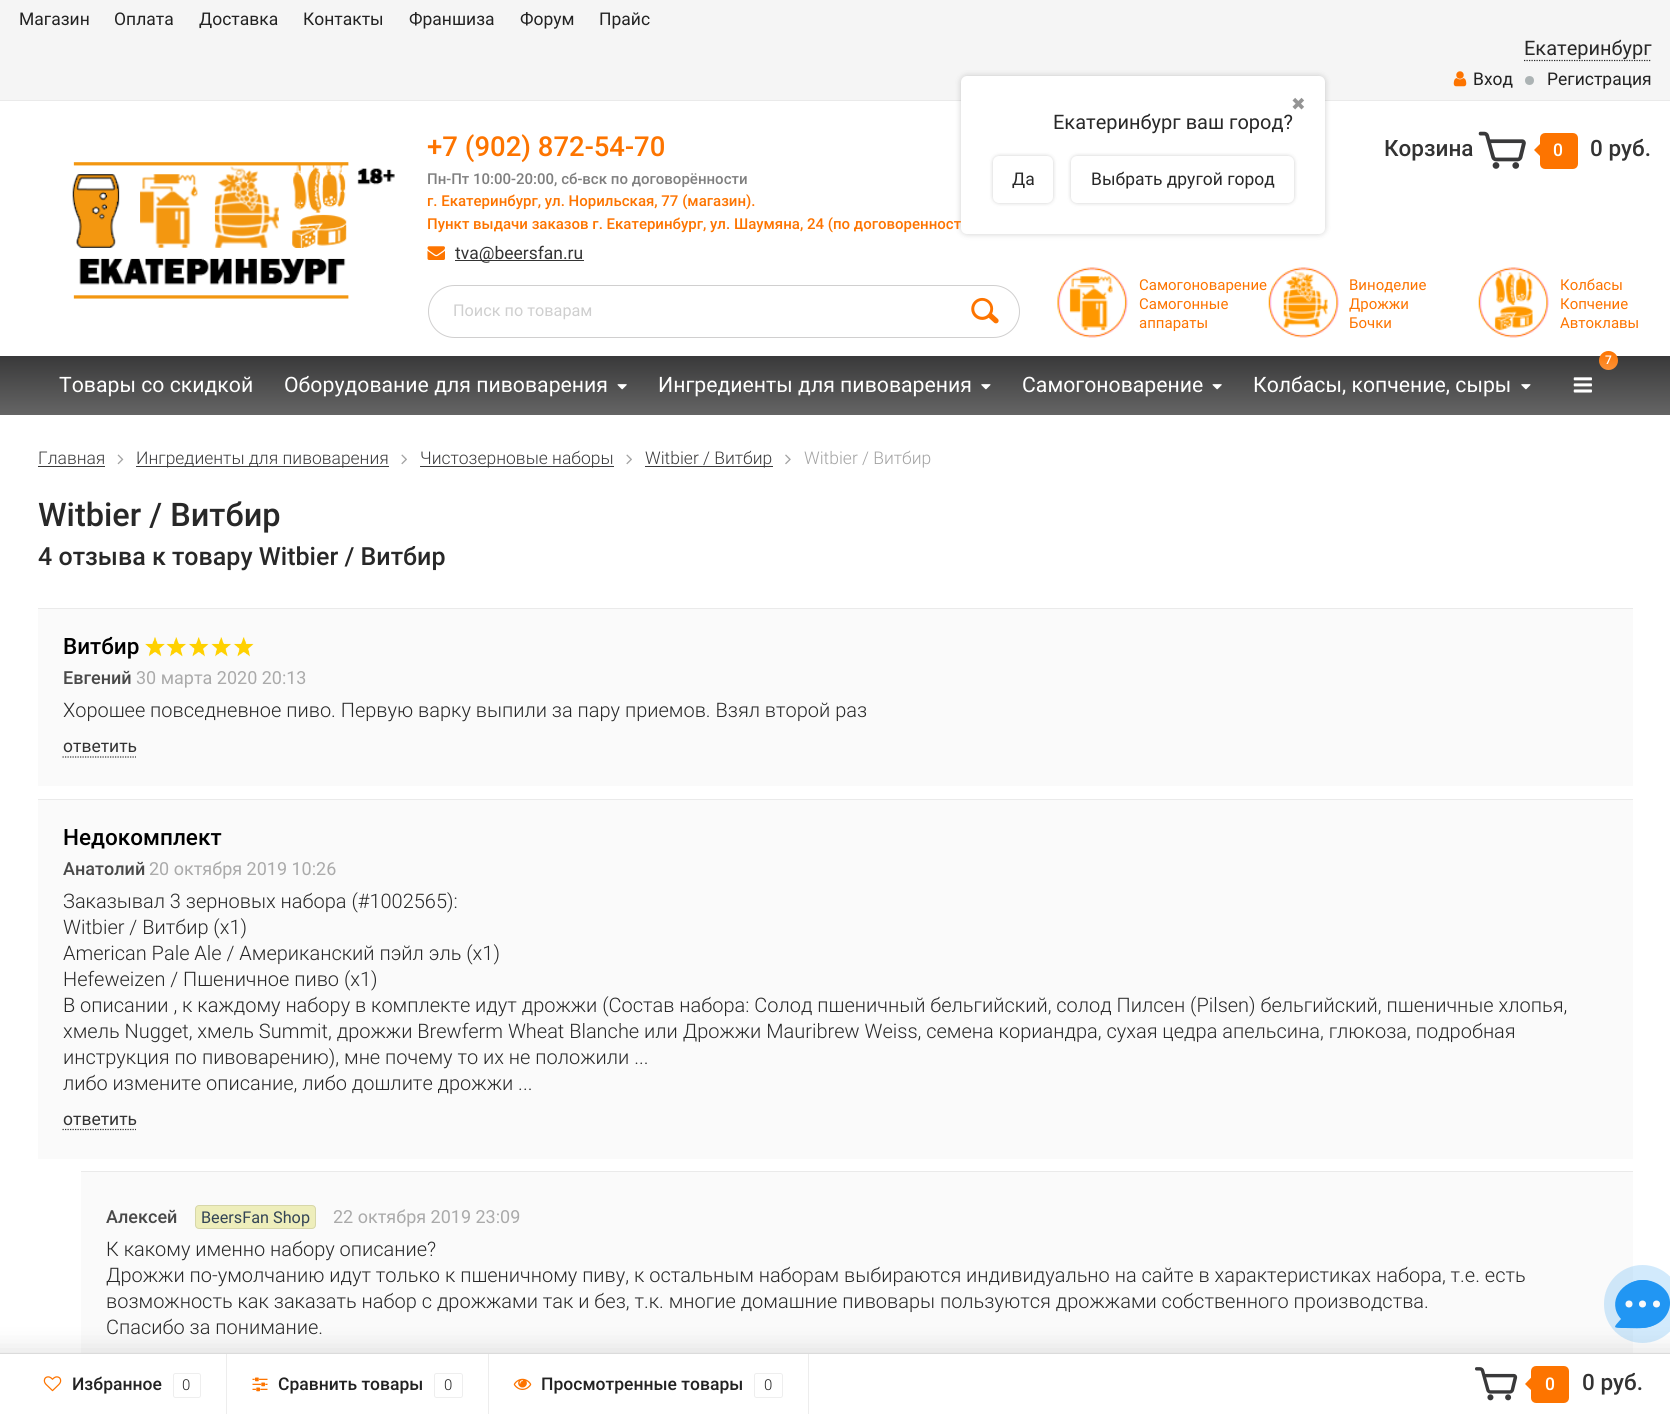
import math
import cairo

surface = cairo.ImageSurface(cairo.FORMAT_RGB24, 1670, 1414)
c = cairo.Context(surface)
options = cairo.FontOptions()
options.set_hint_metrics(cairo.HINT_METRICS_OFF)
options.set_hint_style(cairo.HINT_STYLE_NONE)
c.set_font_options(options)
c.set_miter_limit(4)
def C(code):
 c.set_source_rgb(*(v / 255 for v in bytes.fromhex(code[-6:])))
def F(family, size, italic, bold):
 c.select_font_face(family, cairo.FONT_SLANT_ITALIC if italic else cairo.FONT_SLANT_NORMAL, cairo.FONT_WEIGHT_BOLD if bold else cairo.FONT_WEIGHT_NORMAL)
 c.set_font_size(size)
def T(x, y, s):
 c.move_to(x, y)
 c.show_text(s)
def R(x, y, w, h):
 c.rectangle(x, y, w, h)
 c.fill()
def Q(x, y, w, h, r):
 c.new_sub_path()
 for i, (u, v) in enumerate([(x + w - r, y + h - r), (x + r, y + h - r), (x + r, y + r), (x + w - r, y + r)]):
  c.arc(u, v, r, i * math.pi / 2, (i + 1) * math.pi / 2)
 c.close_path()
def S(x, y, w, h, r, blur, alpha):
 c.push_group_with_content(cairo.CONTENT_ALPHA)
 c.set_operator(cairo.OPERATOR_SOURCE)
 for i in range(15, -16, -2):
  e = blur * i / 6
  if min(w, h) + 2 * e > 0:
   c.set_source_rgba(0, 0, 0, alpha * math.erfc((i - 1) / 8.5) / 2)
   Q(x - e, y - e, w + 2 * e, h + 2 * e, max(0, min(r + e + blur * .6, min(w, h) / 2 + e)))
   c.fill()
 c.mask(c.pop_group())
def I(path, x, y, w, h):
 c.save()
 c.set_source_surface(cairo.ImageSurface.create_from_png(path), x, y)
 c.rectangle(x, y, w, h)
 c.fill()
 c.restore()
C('ffffff')
c.paint()
C('f5f5f5')
R(0,0,1670,100)
C('eaeaea')
R(0,100,1670,1)
F('Roboto',17.5,0,0)
C('222222')
T(19,25,'Магазин')
T(114,25,'Оплата')
T(199,25,'Доставка')
T(303,25,'Контакты')
T(409,25,'Франшиза')
T(520,25,'Форум')
T(599,25,'Прайс')
c.new_path()
c.move_to(1524,60.5)
c.line_to(1651,60.5)
C('282828')
c.set_line_width(1.2)
c.set_dash([1.25,1.25])
c.stroke()
F('Roboto',20,0,0)
T(1524,55,'Екатеринбург')
C('000000')
S(961,76,364,158,6,3,.2)
C('ffffff')
Q(961,76,364,158,6)
c.fill()
F('DejaVu Sans',17.5,0,0)
C('949494')
T(1291,110,'✖')
F('Roboto',20,0,0)
C('282828')
T(1053,129,'Екатеринбург ваш город?')
C('000000')
S(993,156,60,47,6,2,.2)
C('ffffff')
Q(993,156,60,47,6)
c.fill()
F('Roboto',17.5,0,0)
C('282828')
T(1012,185,'Да')
C('000000')
S(1071,156,223,47,6,2,.2)
C('ffffff')
Q(1071,156,223,47,6)
c.fill()
C('282828')
T(1091,185,'Выбрать другой город')
I('1.png',1453,71,14,16)
C('222222')
T(1473,85,'Вход')
C('acb3b4')
c.new_path()
c.arc(1529.5,80.5,4.5,0,2 * math.pi)
c.fill()
C('222222')
T(1547,85,'Регистрация')
I('2.png',72,162,323,137)
F('Roboto Medium',27.5,0,0)
C('fd7400')
T(427,156,'+7 (902) 872-54-70')
F('Roboto Medium',15,0,0)
C('7f7f7f')
T(427,184,'Пн-Пт 10:00-20:00, сб-вск по договорённости')
C('fd7400')
T(427,206,'г. Екатеринбург, ул. Норильская, 77 (магазин).')
T(427,229,'Пункт выдачи заказов г. Екатеринбург, ул. Шаумяна, 24 (по договоренност')
I('3.png',427,246,18,14)
C('343434')
R(455,260,129,1)
F('Roboto',17.5,0,0)
C('333333')
T(455,259,'tva@beersfan.ru')
F('Roboto Medium',22.5,0,0)
T(1384,156,'Корзина')
I('4.png',1478,131,48,38)
C('fd7400')
Q(1542.5,135.5,33,31,2.5)
c.fill_preserve()
c.set_line_width(5)
c.set_dash([])
c.stroke()
c.new_path()
c.move_to(1545,139)
c.line_to(1545,161)
c.line_to(1534,150)
c.close_path()
c.fill()
F('Roboto Medium',17.5,0,0)
C('ffffff')
T(1553,156,'0')
F('Roboto Medium',22.5,0,0)
C('333333')
T(1590,156,'0 руб.')
Q(428.5,285.5,591,52,26)
C('d0cfcf')
c.set_line_width(1)
c.stroke()
F('Roboto',16.25,0,0)
C('cfcfcf')
T(453,316,'Поиск по товарам')
I('5.png',971,297,28,27)
I('6.png',1057,267,71,71)
F('Roboto',15,0,0)
C('fd7400')
T(1139,290,'Cамогоноварение')
T(1139,309,'Самогонные')
T(1139,328,'аппараты')
I('7.png',1268,267,71,71)
T(1349,290,'Виноделие')
T(1349,309,'Дрожжи')
T(1349,328,'Бочки')
I('8.png',1478,267,71,71)
T(1560,290,'Колбасы')
T(1560,309,'Копчение')
T(1560,328,'Автоклавы')
gradient = cairo.LinearGradient(835,356,835,415)
gradient.add_color_stop_rgba(0,0.224,0.224,0.227,1)
gradient.add_color_stop_rgba(1,0.396,0.396,0.396,1)
c.set_source(gradient)
R(0,356,1670,59)
C('fd7400')
c.new_path()
c.arc(1608.5,360.5,9.5,0,2 * math.pi)
c.fill()
gradient = cairo.LinearGradient(1608,351,1608,370)
gradient.add_color_stop_rgba(0,1,1,1,0)
gradient.add_color_stop_rgba(1,1,1,1,.22)
c.set_source(gradient)
c.arc(1608.5,360.5,9.5,0,2 * math.pi)
c.fill()
F('Roboto Medium',12,0,0)
C('ffffff')
T(1605,364,'7')
I('9.png',1573,377,19,16)
F('Roboto',21.25,0,0)
T(59,392,'Товары со скидкой')
T(284,392,'Оборудование для пивоварения')
I('10.png',617,384,10,6)
T(658,392,'Ингредиенты для пивоварения')
I('11.png',981,384,10,6)
T(1022,392,'Самогоноварение')
I('10.png',1212,384,10,6)
T(1253,392,'Колбасы, копчение, сыры')
I('11.png',1521,384,10,6)
F('Roboto Light',17.5,0,0)
C('39393a')
T(38,464,'Главная')
R(38,466,67,1)
I('12.png',117,454,7,11)
R(136,466,253,1)
T(136,464,'Ингредиенты для пивоварения')
I('13.png',401,454,6,11)
R(420,466,194,1)
T(420,464,'Чистозерновые наборы')
I('13.png',626,454,6,11)
R(645,466,128,1)
T(645,464,'Witbier / Витбир')
I('14.png',785,454,6,11)
C('a3a3a3')
T(804,464,'Witbier / Витбир')
F('Roboto Medium',32.5,0,0)
C('282828')
T(38,526,'Witbier / Витбир')
F('Roboto Medium',25,0,0)
T(38,565,'4 отзыва к товару Witbier / Витбир')
C('fafafa')
R(38,609,1595,177)
C('eaeaea')
R(38,608,1595,1)
F('Roboto Medium',22.5,0,0)
C('000000')
T(63,654,'Витбир')
I('15.png',145,637,20,20)
I('16.png',166,637,21,20)
I('17.png',188,637,21,20)
I('16.png',211,637,21,20)
I('17.png',233,637,21,20)
F('Roboto Medium',18,0,0)
C('494949')
T(63,684,'Евгений')
F('Roboto',18,0,0)
C('aaaaaa')
T(136,684,'30 марта 2020 20:13')
F('Roboto Light',20,0,0)
C('282828')
T(63,717,'Хорошее повседневное пиво. Первую варку выпили за пару приемов. Взял второй раз')
F('Roboto',17.5,0,0)
C('333333')
T(63,752,'ответить')
c.new_path()
c.move_to(62.5,757)
c.line_to(136,757)
c.set_line_width(1.2)
c.set_dash([1.25,1.25])
c.stroke()
C('fafafa')
R(38,800,1595,359)
C('eaeaea')
R(38,799,1595,1)
F('Roboto Medium',22.5,0,0)
C('000000')
T(63,845,'Недокомплект')
F('Roboto Medium',18,0,0)
C('494949')
T(63,875,'Анатолий')
F('Roboto',18,0,0)
C('aaaaaa')
T(149,875,'20 октября 2019 10:26')
F('Roboto Light',20,0,0)
C('282828')
T(63,908,'Заказывал 3 зерновых набора (#1002565):')
T(63,934,'Witbier / Витбир (x1)')
T(63,960,'American Pale Ale / Американский пэйл эль (x1)')
T(63,986,'Hefeweizen / Пшеничное пиво (x1)')
T(63,1012,'В описании , к каждому набору в комплекте идут дрожжи (Состав набора: Солод пшеничный бельгийский, солод Пилсен (Pilsen) бельгийский, пшеничные хлопья,')
T(63,1038,'хмель Nugget, хмель Summit, дрожжи Brewferm Wheat Blanche или Дрожжи Mauribrew Weiss, семена кориандра, сухая цедра апельсина, глюкоза, подробная')
T(63,1064,'инструкция по пивоварению), мне почему то их не положили ...')
T(63,1090,'либо измените описание, либо дошлите дрожжи ...')
F('Roboto',17.5,0,0)
C('333333')
T(63,1125,'ответить')
c.new_path()
c.move_to(62.5,1129.5)
c.line_to(136,1129.5)
c.stroke()
C('fafafa')
R(81,1172,1552,181)
C('eaeaea')
R(81,1171,1552,1)
F('Roboto Medium',18,0,0)
C('494949')
T(106,1223,'Алексей')
C('eeeebb')
Q(195,1205,121,24,4)
c.fill()
Q(195.5,1205.5,120,23,3.5)
c.set_source_rgba(0,0,0,0.1)
c.set_line_width(1)
c.set_dash([])
c.stroke()
F('Roboto',16.25,0,0)
C('334455')
T(201,1223,'BeersFan Shop')
F('Roboto',18,0,0)
C('aaaaaa')
T(333,1223,'22 октября 2019 23:09')
F('Roboto Light',20,0,0)
C('282828')
T(106,1256,'К какому именно набору описание?')
T(106,1282,'Дрожжи по-умолчанию идут только к пшеничному пиву, к остальным наборам выбираются индивидуально на сайте в характеристиках набора, т.е. есть')
T(106,1308,'возможность как заказать набор с дрожжами так и без, т.к. многие домашние пивовары пользуются дрожжами собственного производства.')
T(106,1334,'Спасибо за понимание.')
C('323232')
S(-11,1350,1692,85,0,12.5,.15)
c.set_source_rgba(0.129,0.588,0.953,0.2)
Q(1604,1265,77,78,38.5)
c.fill()
Q(1619.5,1280.5,46,47,23)
C('2196f3')
c.stroke()
c.new_path()
c.move_to(1643,1280)
c.curve_to(1622,1280,1606,1302,1621,1319)
c.curve_to(1613,1328,1612,1328,1625,1328)
c.curve_to(1633,1328,1641,1329,1648,1327)
c.curve_to(1663,1325,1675,1309,1668,1294)
c.curve_to(1663,1285,1653,1280,1643,1280)
c.close_path()
c.fill()
C('fafafa')
c.arc(1642.5,1304,3.5,0,2 * math.pi)
c.fill()
c.arc(1629,1304,3.5,0,2 * math.pi)
c.fill()
c.arc(1656.5,1304,3.5,0,2 * math.pi)
c.fill()
C('ffffff')
R(0,1354,1670,60)
C('dbdbdb')
R(0,1353,1670,1)
C('ededed')
R(226,1354,1,60)
I('18.png',43,1376,19,16)
F('Roboto Medium',17.5,0,0)
C('222222')
T(72,1390,'Избранное')
Q(173.5,1373.5,27,24,2)
C('eeeeee')
c.stroke()
F('Roboto Light',15,0,0)
C('222222')
T(182,1390,'0')
C('ededed')
R(488,1354,1,60)
I('19.png',252,1377,16,15)
F('Roboto Medium',17.5,0,0)
C('222222')
T(278,1390,'Сравнить товары')
Q(434.5,1373.5,28,24,2)
C('eeeeee')
c.stroke()
F('Roboto Light',15,0,0)
C('222222')
T(444,1390,'0')
C('ededed')
R(808,1354,1,60)
I('20.png',513,1378,19,12)
F('Roboto Medium',17.5,0,0)
C('222222')
T(541,1390,'Просмотренные товары')
Q(754.5,1373.5,28,24,2)
C('eeeeee')
c.stroke()
F('Roboto Light',15,0,0)
C('222222')
T(764,1390,'0')
I('21.png',1475,1367,43,34)
C('fd7400')
Q(1533.5,1368.5,33,32,2.5)
c.fill_preserve()
c.set_line_width(5)
c.stroke()
c.new_path()
c.move_to(1536,1372.5)
c.line_to(1536,1395)
c.line_to(1525,1384)
c.close_path()
c.fill()
F('Roboto Medium',17.5,0,0)
C('ffffff')
T(1545,1390,'0')
F('Roboto Medium',22.5,0,0)
C('333333')
T(1582,1390,'0 руб.')
surface.write_to_png('o.png')
